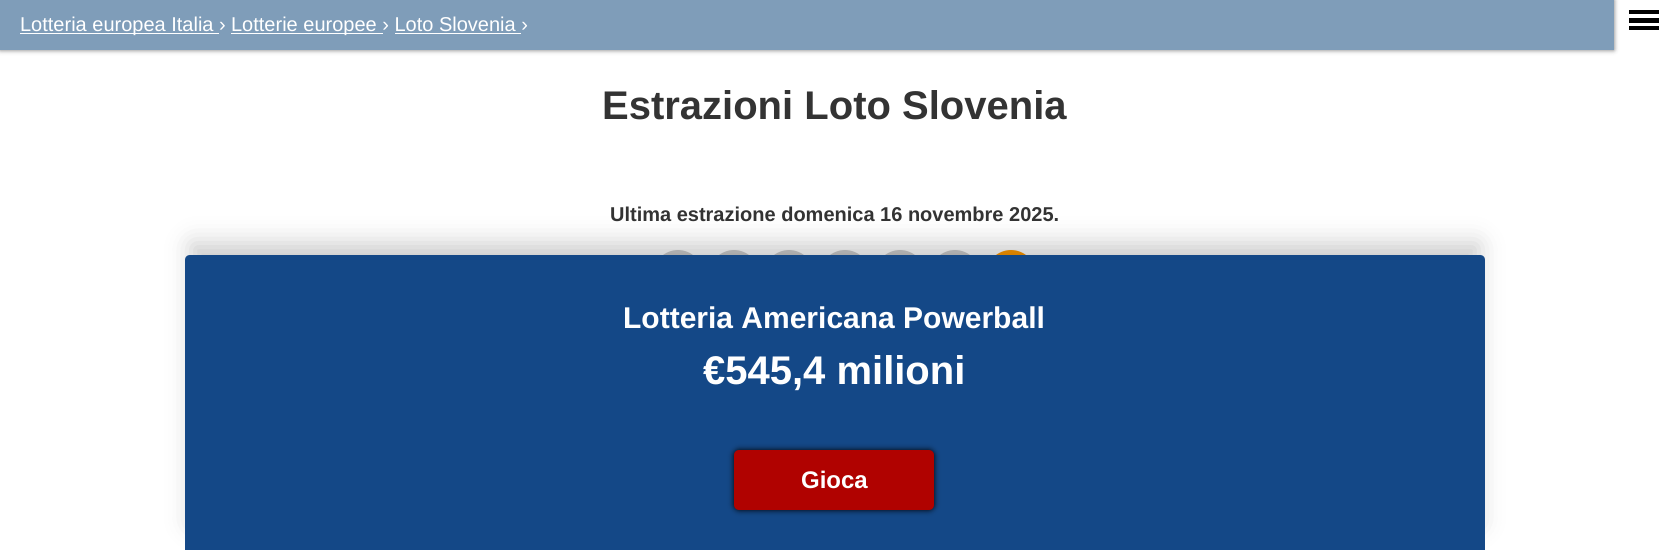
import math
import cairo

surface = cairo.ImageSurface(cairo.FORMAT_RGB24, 1668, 550)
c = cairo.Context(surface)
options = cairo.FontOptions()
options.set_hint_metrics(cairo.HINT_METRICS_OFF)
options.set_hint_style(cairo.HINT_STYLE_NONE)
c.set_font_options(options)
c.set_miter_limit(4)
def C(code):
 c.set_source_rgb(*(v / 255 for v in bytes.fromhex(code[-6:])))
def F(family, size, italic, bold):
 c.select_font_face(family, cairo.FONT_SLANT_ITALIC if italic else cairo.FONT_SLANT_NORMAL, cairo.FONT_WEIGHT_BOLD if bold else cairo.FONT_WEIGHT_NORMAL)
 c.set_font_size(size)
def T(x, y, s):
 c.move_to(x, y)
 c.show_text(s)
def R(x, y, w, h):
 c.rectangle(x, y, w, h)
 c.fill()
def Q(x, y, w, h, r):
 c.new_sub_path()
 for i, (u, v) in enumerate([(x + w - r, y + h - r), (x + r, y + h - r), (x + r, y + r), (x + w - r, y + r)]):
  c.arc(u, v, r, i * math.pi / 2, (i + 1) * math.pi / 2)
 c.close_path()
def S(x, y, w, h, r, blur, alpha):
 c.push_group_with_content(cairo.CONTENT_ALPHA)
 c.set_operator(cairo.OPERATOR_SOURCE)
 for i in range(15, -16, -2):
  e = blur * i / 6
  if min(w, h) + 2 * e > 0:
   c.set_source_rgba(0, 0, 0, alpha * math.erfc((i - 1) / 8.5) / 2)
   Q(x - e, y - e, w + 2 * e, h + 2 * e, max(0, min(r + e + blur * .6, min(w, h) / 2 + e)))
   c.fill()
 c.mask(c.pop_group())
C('ffffff')
c.paint()
C('000000')
S(0,0,1614,50,0,2.5,.55)
C('7f9db9')
R(0,0,1614,50)
C('ffffff')
R(20,33,199,1)
F('Liberation Sans',20,0,0)
T(20,31,'Lotteria europea Italia ›')
R(231,33,152,1)
T(231,31,'Lotterie europee › Loto Slovenia ›')
R(395,33,126,1)
C('000000')
R(1629,10,30,4)
R(1629,18,30,5)
R(1629,26,30,4)
F('Liberation Sans',40,0,1)
C('333333')
T(602,119,'Estrazioni Loto Slovenia')
F('Liberation Sans',20,0,1)
T(610,221,'Ultima estrazione domenica 16 novembre 2025.')
c.new_path()
c.arc(678,275,22.5,0,2 * math.pi)
C('cccccc')
c.set_line_width(5)
c.stroke()
c.arc(734,275,22.5,0,2 * math.pi)
c.stroke()
c.arc(789,275,22.5,0,2 * math.pi)
c.stroke()
c.arc(845,275,22.5,0,2 * math.pi)
c.stroke()
c.arc(900,275,22.5,0,2 * math.pi)
c.stroke()
c.arc(955,275,22.5,0,2 * math.pi)
c.stroke()
c.arc(1011,275,22.5,0,2 * math.pi)
C('ff9900')
c.stroke()
C('000000')
S(191,243,1288,282,0,12.5,.2)
C('144887')
c.new_path()
c.move_to(190,255)
c.line_to(1480,255)
c.curve_to(1483,255,1485,257,1485,260)
c.line_to(1485,550)
c.line_to(185,550)
c.line_to(185,260)
c.curve_to(185,257,187,255,190,255)
c.close_path()
c.fill()
F('Liberation Sans',30,0,1)
C('ffffff')
T(623,328,'Lotteria Americana Powerball')
F('Liberation Sans',40,0,1)
T(703,384,'€545,4 milioni')
C('000000')
S(734,450,200,60,5,3,1)
C('b00200')
Q(734,450,200,60,5)
c.fill()
F('Liberation Sans',24,0,1)
C('ffffff')
T(801,488,'Gioca')
surface.write_to_png('o.png')
